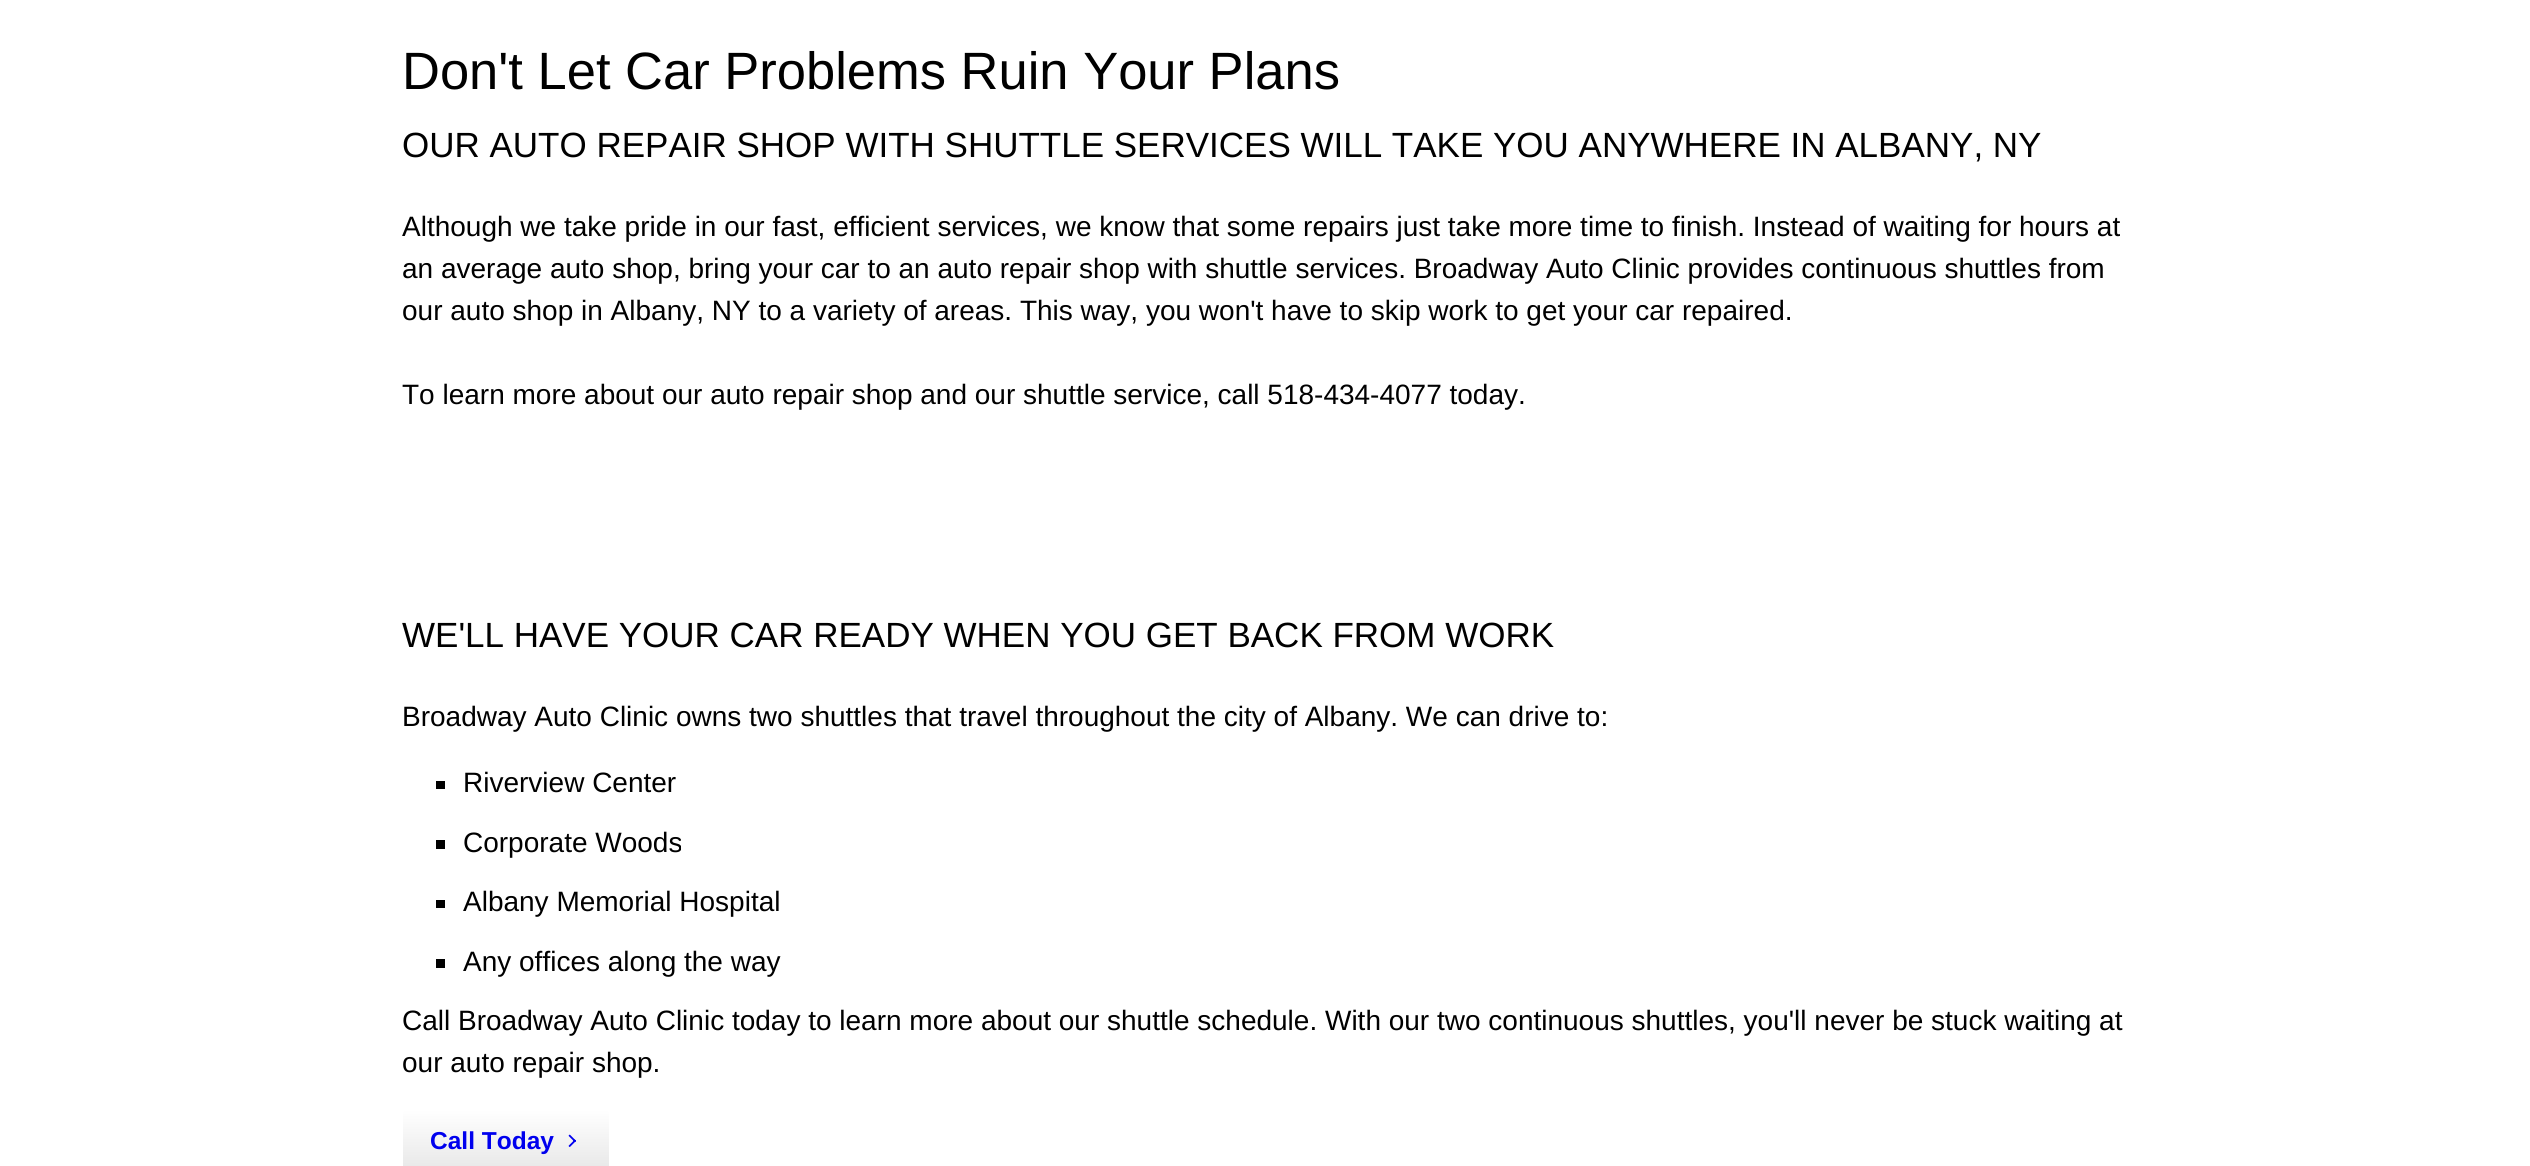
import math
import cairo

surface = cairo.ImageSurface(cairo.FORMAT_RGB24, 2530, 1166)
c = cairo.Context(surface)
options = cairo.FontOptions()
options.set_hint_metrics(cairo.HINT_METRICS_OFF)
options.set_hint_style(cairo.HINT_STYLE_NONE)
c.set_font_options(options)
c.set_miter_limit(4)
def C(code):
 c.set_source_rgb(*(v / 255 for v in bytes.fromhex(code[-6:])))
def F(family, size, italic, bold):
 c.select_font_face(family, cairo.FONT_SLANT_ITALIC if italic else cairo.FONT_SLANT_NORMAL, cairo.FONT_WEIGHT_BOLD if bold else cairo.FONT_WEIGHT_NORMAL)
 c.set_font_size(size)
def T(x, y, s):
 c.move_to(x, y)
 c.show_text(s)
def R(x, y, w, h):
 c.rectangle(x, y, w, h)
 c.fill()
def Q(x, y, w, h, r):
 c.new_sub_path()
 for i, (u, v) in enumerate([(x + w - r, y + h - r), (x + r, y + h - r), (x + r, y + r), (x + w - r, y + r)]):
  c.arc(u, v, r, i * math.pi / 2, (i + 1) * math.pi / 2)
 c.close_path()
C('ffffff')
c.paint()
F('Liberation Sans',52.5,0,0)
C('000000')
T(402,89,'Don\'t Let Car Problems Ruin Your Plans')
F('Liberation Sans',35,0,0)
T(402,157,'OUR AUTO REPAIR SHOP WITH SHUTTLE SERVICES WILL TAKE YOU ANYWHERE IN ALBANY, NY')
F('Liberation Sans',28,0,0)
T(402,236,'Although we take pride in our fast, efficient services, we know that some repairs just take more time to finish. Instead of waiting for hours at')
T(402,278,'an average auto shop, bring your car to an auto repair shop with shuttle services. Broadway Auto Clinic provides continuous shuttles from')
T(402,320,'our auto shop in Albany, NY to a variety of areas. This way, you won\'t have to skip work to get your car repaired.')
T(402,404,'To learn more about our auto repair shop and our shuttle service, call 518-434-4077 today.')
F('Liberation Sans',35,0,0)
T(402,647,'WE\'LL HAVE YOUR CAR READY WHEN YOU GET BACK FROM WORK')
F('Liberation Sans',28,0,0)
T(402,726,'Broadway Auto Clinic owns two shuttles that travel throughout the city of Albany. We can drive to:')
R(436,781,9,8)
T(463,792,'Riverview Center')
R(436,840,9,9)
T(463,852,'Corporate Woods')
R(436,900,9,8)
T(463,911,'Albany Memorial Hospital')
R(436,959,9,9)
T(463,971,'Any offices along the way')
T(402,1030,'Call Broadway Auto Clinic today to learn more about our shuttle schedule. With our two continuous shuttles, you\'ll never be stuck waiting at')
T(402,1072,'our auto repair shop.')
c.save()
Q(403,1110,206,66,4)
c.clip()
gradient = cairo.LinearGradient(506,1110,506,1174)
gradient.add_color_stop_rgba(0,1,1,1,1)
gradient.add_color_stop_rgba(1,0.902,0.902,0.902,1)
c.set_source(gradient)
c.new_path()
c.move_to(407,1110)
c.line_to(605,1110)
c.curve_to(607,1110,609,1112,609,1114)
c.line_to(609,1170)
c.line_to(403,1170)
c.line_to(403,1114)
c.curve_to(403,1112,405,1110,407,1110)
c.close_path()
c.fill()
c.restore()
F('Liberation Sans',24.5,0,1)
C('0000ee')
T(430,1149,'Call Today')
F('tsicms',18,0,1)
T(563,1149,'>')
surface.write_to_png('o.png')
